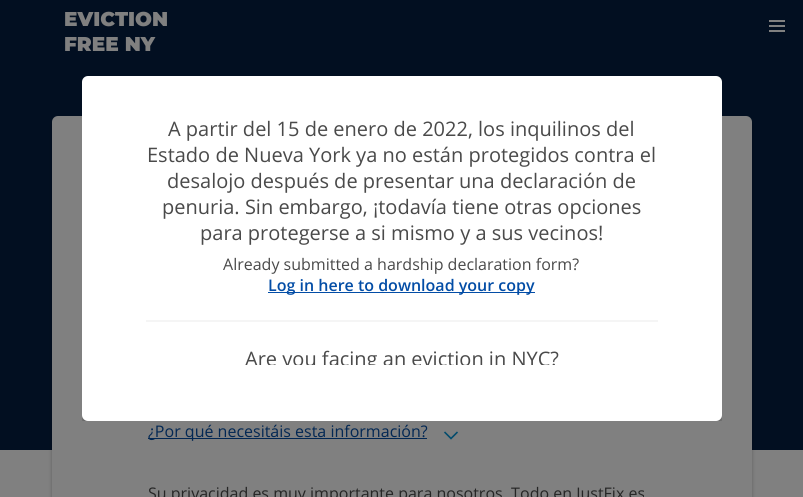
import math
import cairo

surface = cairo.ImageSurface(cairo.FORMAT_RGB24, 803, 497)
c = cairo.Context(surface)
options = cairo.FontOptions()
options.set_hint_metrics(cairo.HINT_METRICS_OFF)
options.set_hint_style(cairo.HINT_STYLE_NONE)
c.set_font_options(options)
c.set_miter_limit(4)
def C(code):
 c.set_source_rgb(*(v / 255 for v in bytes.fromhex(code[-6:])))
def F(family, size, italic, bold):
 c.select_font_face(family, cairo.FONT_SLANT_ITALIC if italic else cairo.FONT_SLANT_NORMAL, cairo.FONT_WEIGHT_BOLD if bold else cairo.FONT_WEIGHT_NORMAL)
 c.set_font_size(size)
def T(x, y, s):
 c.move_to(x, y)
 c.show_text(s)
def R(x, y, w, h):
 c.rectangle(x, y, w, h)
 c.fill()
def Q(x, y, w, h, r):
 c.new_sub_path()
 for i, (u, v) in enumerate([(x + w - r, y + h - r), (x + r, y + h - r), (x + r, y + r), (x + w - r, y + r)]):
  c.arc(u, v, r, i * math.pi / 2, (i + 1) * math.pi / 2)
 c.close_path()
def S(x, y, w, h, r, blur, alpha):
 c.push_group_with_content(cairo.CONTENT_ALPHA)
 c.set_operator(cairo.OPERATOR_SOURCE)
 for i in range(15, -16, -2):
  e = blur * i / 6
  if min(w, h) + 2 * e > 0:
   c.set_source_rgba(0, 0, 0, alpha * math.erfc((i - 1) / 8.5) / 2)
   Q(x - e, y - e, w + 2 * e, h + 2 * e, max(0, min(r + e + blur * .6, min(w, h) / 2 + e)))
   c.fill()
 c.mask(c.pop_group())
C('808080')
c.paint()
C('020f21')
R(0,0,803,450)
F('Montserrat Black',20,0,0)
C('808080')
T(64,26,'EVICTION')
T(64,51,'FREE NY')
R(769,20,16,2)
R(769,25,16,2)
R(769,30,16,2)
C('000000')
S(52,120,700,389,6,2,.25)
C('808080')
Q(52,116,700,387,6)
c.fill()
C('022753')
R(148,438,279,1)
F('Open Sans',16,0,0)
T(148,437,'¿Por qué necesitáis esta información?')
c.new_path()
c.move_to(444.5,432)
c.line_to(451,438.5)
c.line_to(457.5,432)
C('014b6c')
c.set_line_width(1.6)
c.stroke()
C('252525')
T(148,499,'Su privacidad es muy importante para nosotros. Todo en JustFix es')
c.save()
c.rectangle(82,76,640,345)
c.clip()
C('000000')
S(82,80,640,345,6,2,.25)
c.restore()
C('ffffff')
Q(82,76,640,345,6)
c.fill()
F('Open Sans',20,0,0)
C('4a4a4a')
T(168,136,'A partir del 15 de enero de 2022, los inquilinos del')
T(147,162,'Estado de Nueva York ya no están protegidos contra el')
T(167,188,'desalojo después de presentar una declaración de')
T(162,214,'penuria. Sin embargo, ¡todavía tiene otras opciones')
T(200,240,'para protegerse a si mismo y a sus vecinos!')
F('Open Sans',16,0,0)
T(223,270,'Already submitted a hardship declaration form?')
C('034da6')
R(268,292,267,1)
F('Open Sans SemiBold',16,0,0)
T(268,291,'Log in here to download your copy')
C('f5f5f5')
R(146,320,512,2)
c.save()
c.rectangle(146,116,512,249)
c.clip()
F('Open Sans',20,0,0)
C('4a4a4a')
T(245,366,'Are you facing an eviction in NYC?')
c.restore()
surface.write_to_png('o.png')
